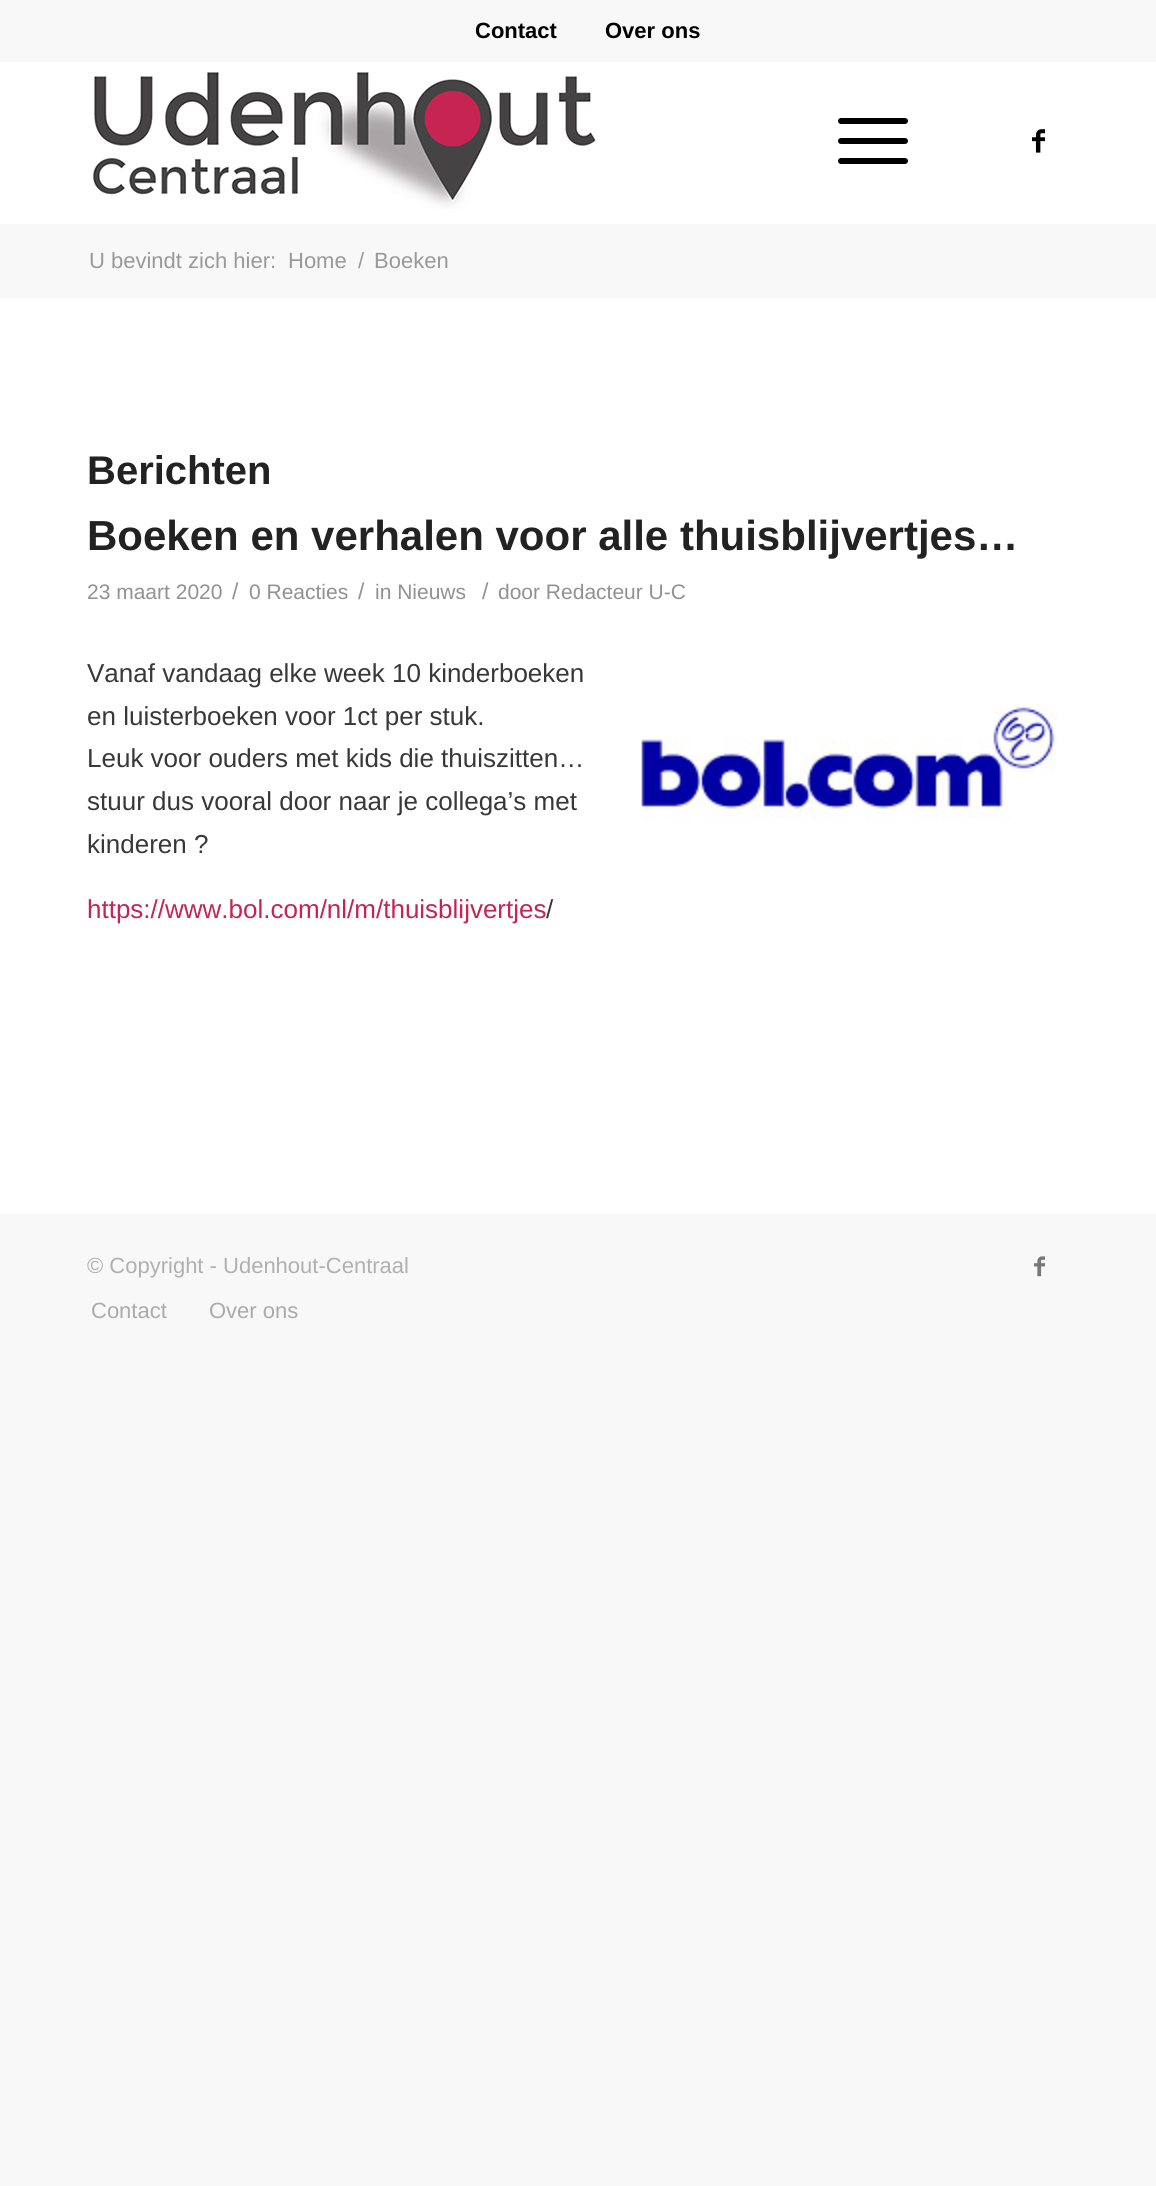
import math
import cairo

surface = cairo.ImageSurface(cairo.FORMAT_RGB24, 1156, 2186)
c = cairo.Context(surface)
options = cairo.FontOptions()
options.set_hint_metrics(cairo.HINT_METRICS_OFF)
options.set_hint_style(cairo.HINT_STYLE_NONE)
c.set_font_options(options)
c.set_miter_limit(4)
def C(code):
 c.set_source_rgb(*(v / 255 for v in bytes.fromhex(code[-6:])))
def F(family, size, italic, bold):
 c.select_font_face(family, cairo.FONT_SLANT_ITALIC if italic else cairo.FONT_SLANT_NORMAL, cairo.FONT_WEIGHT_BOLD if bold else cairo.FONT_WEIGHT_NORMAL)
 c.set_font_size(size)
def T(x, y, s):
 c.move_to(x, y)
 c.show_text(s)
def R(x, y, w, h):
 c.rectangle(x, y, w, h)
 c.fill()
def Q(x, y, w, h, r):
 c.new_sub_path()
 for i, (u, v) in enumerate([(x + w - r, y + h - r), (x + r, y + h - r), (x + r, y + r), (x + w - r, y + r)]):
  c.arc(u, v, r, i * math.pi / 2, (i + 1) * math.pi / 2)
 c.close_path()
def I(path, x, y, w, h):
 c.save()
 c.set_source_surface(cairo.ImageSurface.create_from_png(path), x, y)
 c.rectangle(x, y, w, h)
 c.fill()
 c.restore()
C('f8f8f8')
c.paint()
F('Liberation Sans',22,0,1)
C('000000')
T(475,38,'Contact')
T(605,38,'Over ons')
C('ffffff')
R(0,62,1156,162)
I('1.png',93,72,503,137)
C('000000')
Q(838,138,70,6,3)
c.fill()
Q(838,118,70,6,3)
c.fill()
Q(838,158,70,6,3)
c.fill()
I('2.png',1032,129,13,24)
C('ffffff')
R(0,298,1156,916)
F('Liberation Sans',22,0,0)
C('999999')
T(89,268,'U bevindt zich hier:')
T(288,268,'Home')
T(358,268,'/')
T(374,268,'Boeken')
F('Liberation Sans',40,0,1)
C('222222')
T(87,484,'Berichten')
F('Liberation Sans',42,0,1)
T(87,550,'Boeken en verhalen voor alle thuisblijvertjes…')
F('Liberation Sans',21,0,0)
C('919191')
T(87,599,'23 maart 2020')
F('Liberation Sans',23,0,0)
T(232,599,'/')
F('Liberation Sans',21,0,0)
T(249,599,'0 Reacties')
F('Liberation Sans',23,0,0)
T(358,599,'/')
F('Liberation Sans',21,0,0)
T(375,599,'in Nieuws')
F('Liberation Sans',23,0,0)
T(482,599,'/')
F('Liberation Sans',21,0,0)
T(498,599,'door Redacteur U-C')
F('Liberation Sans',26,0,0)
C('383838')
T(87,682,'Vanaf vandaag elke week 10 kinderboeken')
T(87,725,'en luisterboeken voor 1ct per stuk.')
I('3.png',641,707,417,113)
T(87,767,'Leuk voor ouders met kids die thuiszitten…')
T(87,810,'stuur dus vooral door naar je collega’s met')
T(87,853,'kinderen ?')
C('c62452')
T(87,918,'https://www.bol.com/nl/m/thuisblijvertjes')
C('383838')
T(546,918,'/')
F('Liberation Sans',22,0,0)
C('b0b0b0')
T(87,1273,'© Copyright - Udenhout-Centraal')
I('4.png',1034,1256,11,21)
C('aaaaaa')
T(91,1318,'Contact')
T(209,1318,'Over ons')
surface.write_to_png('o.png')
